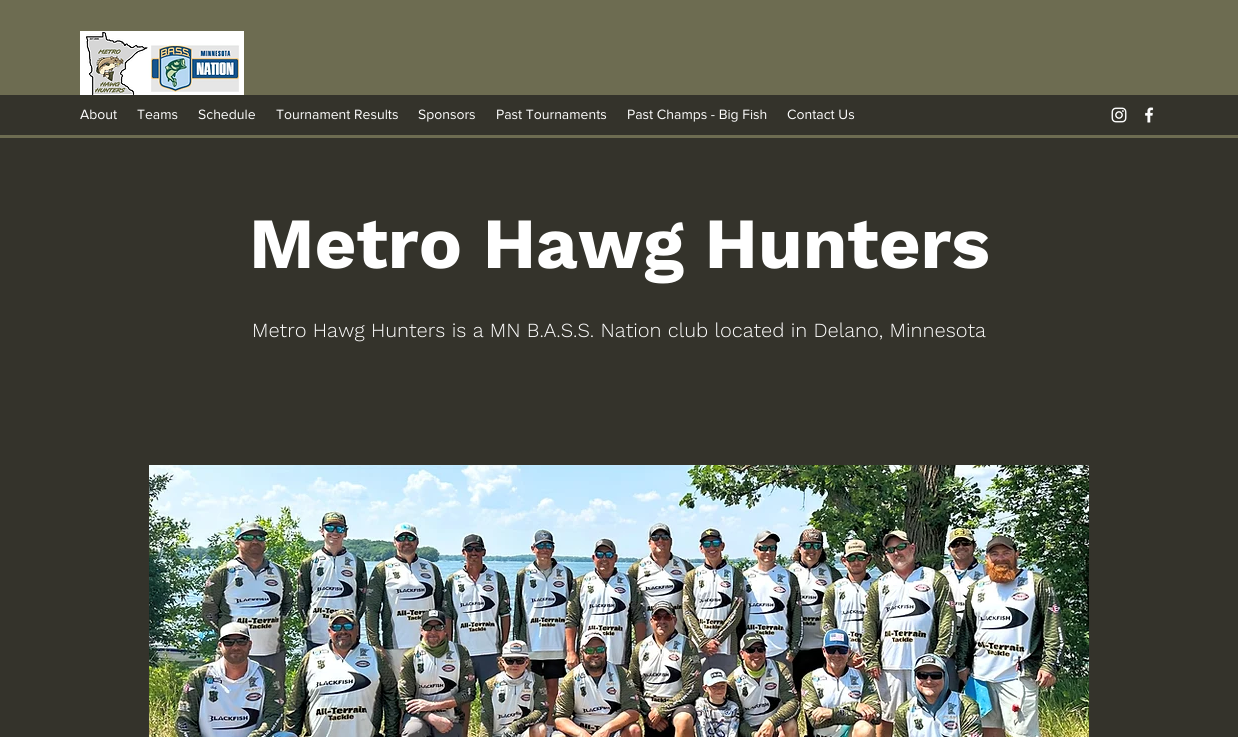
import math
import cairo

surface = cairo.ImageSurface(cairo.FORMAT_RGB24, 1238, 737)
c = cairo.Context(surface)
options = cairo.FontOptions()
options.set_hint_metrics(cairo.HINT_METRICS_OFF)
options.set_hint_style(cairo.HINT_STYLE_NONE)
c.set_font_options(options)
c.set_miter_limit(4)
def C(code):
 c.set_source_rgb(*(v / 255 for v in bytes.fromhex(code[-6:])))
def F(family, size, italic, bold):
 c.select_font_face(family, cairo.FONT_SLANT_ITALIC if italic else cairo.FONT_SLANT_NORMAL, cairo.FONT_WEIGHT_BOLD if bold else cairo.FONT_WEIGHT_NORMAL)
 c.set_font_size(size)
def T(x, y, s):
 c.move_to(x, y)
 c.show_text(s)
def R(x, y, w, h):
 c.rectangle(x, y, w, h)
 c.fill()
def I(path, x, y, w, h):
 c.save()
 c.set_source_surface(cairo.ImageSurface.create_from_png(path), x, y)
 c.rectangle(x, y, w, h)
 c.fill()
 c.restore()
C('34332b')
c.paint()
C('6d6c51')
R(0,0,1238,138)
I('1.png',80,31,164,64)
C('34332b')
R(0,95,1238,40)
F('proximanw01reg',14,0,0)
C('ffffff')
T(80,119,'About')
T(137,119,'Teams')
T(198,119,'Schedule')
T(276,119,'Tournament Results')
T(418,119,'Sponsors')
T(496,119,'Past Tournaments')
T(627,119,'Past Champs - Big Fish')
T(787,119,'Contact Us')
I('2.png',1111,107,16,16)
I('3.png',1145,107,9,16)
F('Work Sans',72,0,1)
T(249,268,'Metro Hawg Hunters')
F('Work Sans Light',20,0,0)
T(252,337,'Metro Hawg Hunters is a MN B.A.S.S. Nation club located in Delano, Minnesota')
I('4.png',149,465,940,272)
surface.write_to_png('o.png')
